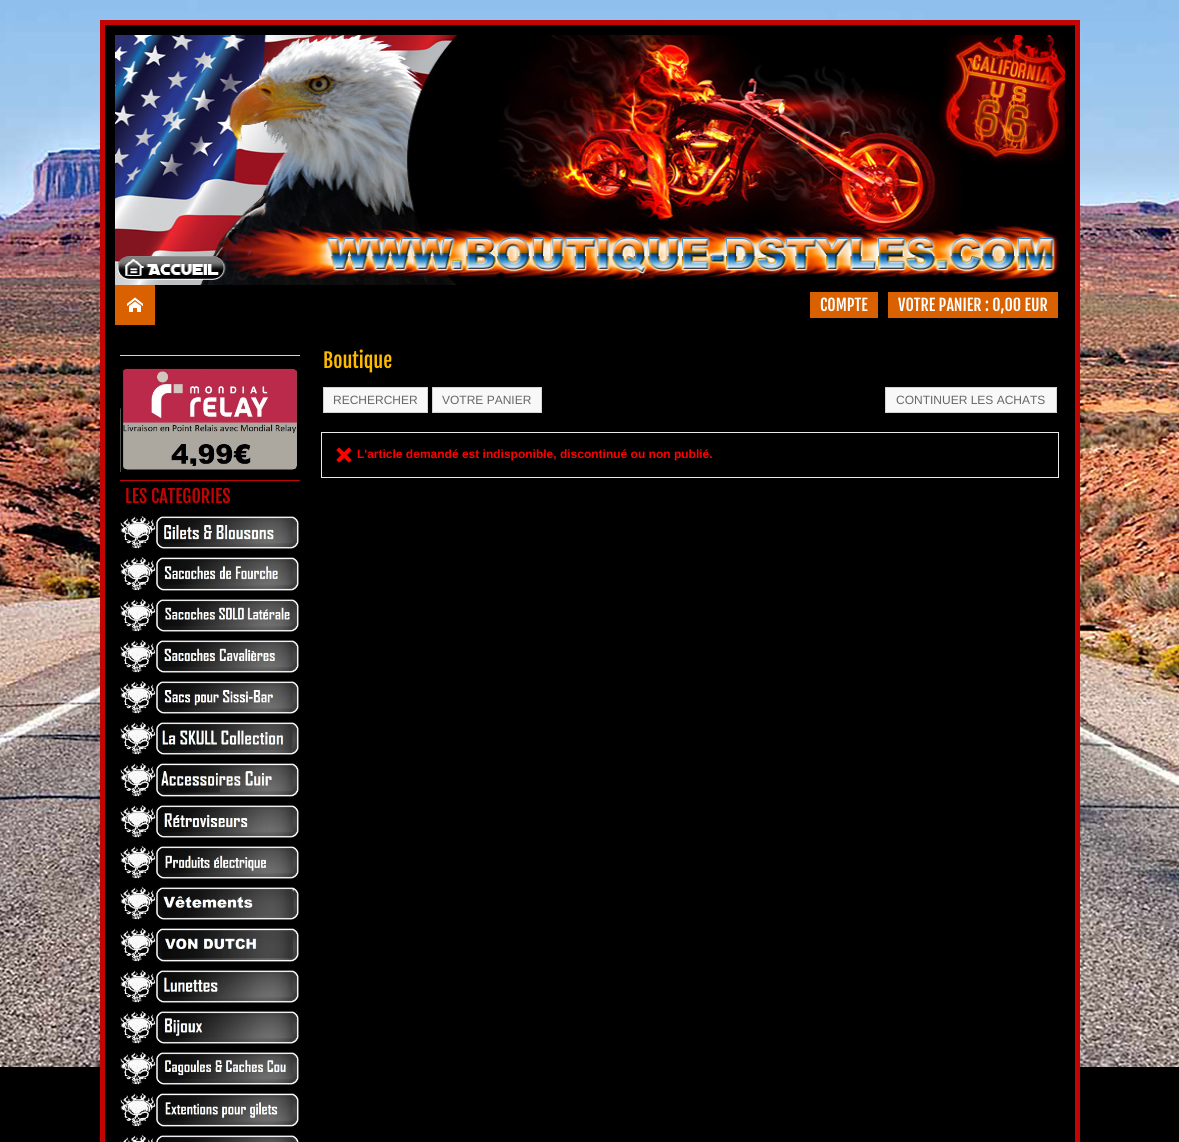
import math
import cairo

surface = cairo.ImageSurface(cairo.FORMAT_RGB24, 1179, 1142)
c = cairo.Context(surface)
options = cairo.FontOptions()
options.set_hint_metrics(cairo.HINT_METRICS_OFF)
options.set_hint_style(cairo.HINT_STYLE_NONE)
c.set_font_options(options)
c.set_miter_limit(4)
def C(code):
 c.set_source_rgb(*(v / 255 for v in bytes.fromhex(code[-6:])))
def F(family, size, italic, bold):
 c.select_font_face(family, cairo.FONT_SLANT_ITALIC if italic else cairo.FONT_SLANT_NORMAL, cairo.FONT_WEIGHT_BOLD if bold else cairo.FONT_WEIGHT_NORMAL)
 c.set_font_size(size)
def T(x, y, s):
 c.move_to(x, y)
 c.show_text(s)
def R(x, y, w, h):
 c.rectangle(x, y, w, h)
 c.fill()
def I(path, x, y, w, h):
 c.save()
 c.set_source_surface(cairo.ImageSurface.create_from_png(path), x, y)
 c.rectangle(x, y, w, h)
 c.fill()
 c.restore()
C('000000')
c.paint()
I('1.png',0,0,1179,1067)
C('000000')
R(105,25,970,1042)
c.rectangle(102.5,22.5,975,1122)
C('c20403')
c.set_line_width(5)
c.stroke()
I('2.png',115,35,950,250)
C('d96100')
R(115,285,40,40)
I('3.png',127,297,16,15)
R(810,292,68,26)
F('Fjalla One',16,0,0)
C('ffffff')
T(820,311,'COMPTE')
C('d96100')
R(888,292,170,26)
C('ffffff')
T(898,311,'VOTRE PANIER : 0,00 EUR')
F('Fjalla One',20,0,0)
C('feba01')
T(323,368,'Boutique')
C('f8f8f8')
c.rectangle(323.5,387.5,104,25)
c.fill_preserve()
C('d4d4d4')
c.set_line_width(1)
c.stroke()
F('Liberation Sans',12,0,0)
C('666666')
T(333,404,'RECHERCHER')
C('f8f8f8')
c.rectangle(432.5,387.5,109,25)
c.fill_preserve()
C('d4d4d4')
c.stroke()
C('666666')
T(442,404,'VOTRE PANIER')
C('f8f8f8')
c.rectangle(885.5,387.5,171,25)
c.fill_preserve()
C('d4d4d4')
c.stroke()
C('666666')
T(896,404,'CONTINUER LES ACHATS')
c.rectangle(321.5,432.5,737,45)
C('ebebeb')
c.stroke()
I('4.png',336,447,16,16)
F('Liberation Sans',12,0,1)
C('ff0000')
T(357,458,'L\'article demandé est indisponible, discontinué ou non publié.')
C('d4d4d4')
R(120,355,180,1)
I('5.png',120,367,178,105)
C('c20403')
R(120,480,180,1)
F('Fjalla One',18,0,0)
T(125,503,'LES CATEGORIES')
I('6.png',120,516,179,33)
I('7.png',120,557,179,34)
I('8.png',120,599,179,33)
I('9.png',120,640,179,33)
I('10.png',120,681,179,33)
I('11.png',120,722,179,33)
I('12.png',120,763,179,34)
I('13.png',120,805,179,33)
I('14.png',120,846,179,33)
I('15.png',120,887,179,33)
I('16.png',120,928,179,34)
I('17.png',120,970,179,33)
I('18.png',120,1011,179,33)
I('19.png',120,1052,179,33)
I('20.png',120,1093,179,34)
I('21.png',120,1135,179,7)
surface.write_to_png('o.png')
